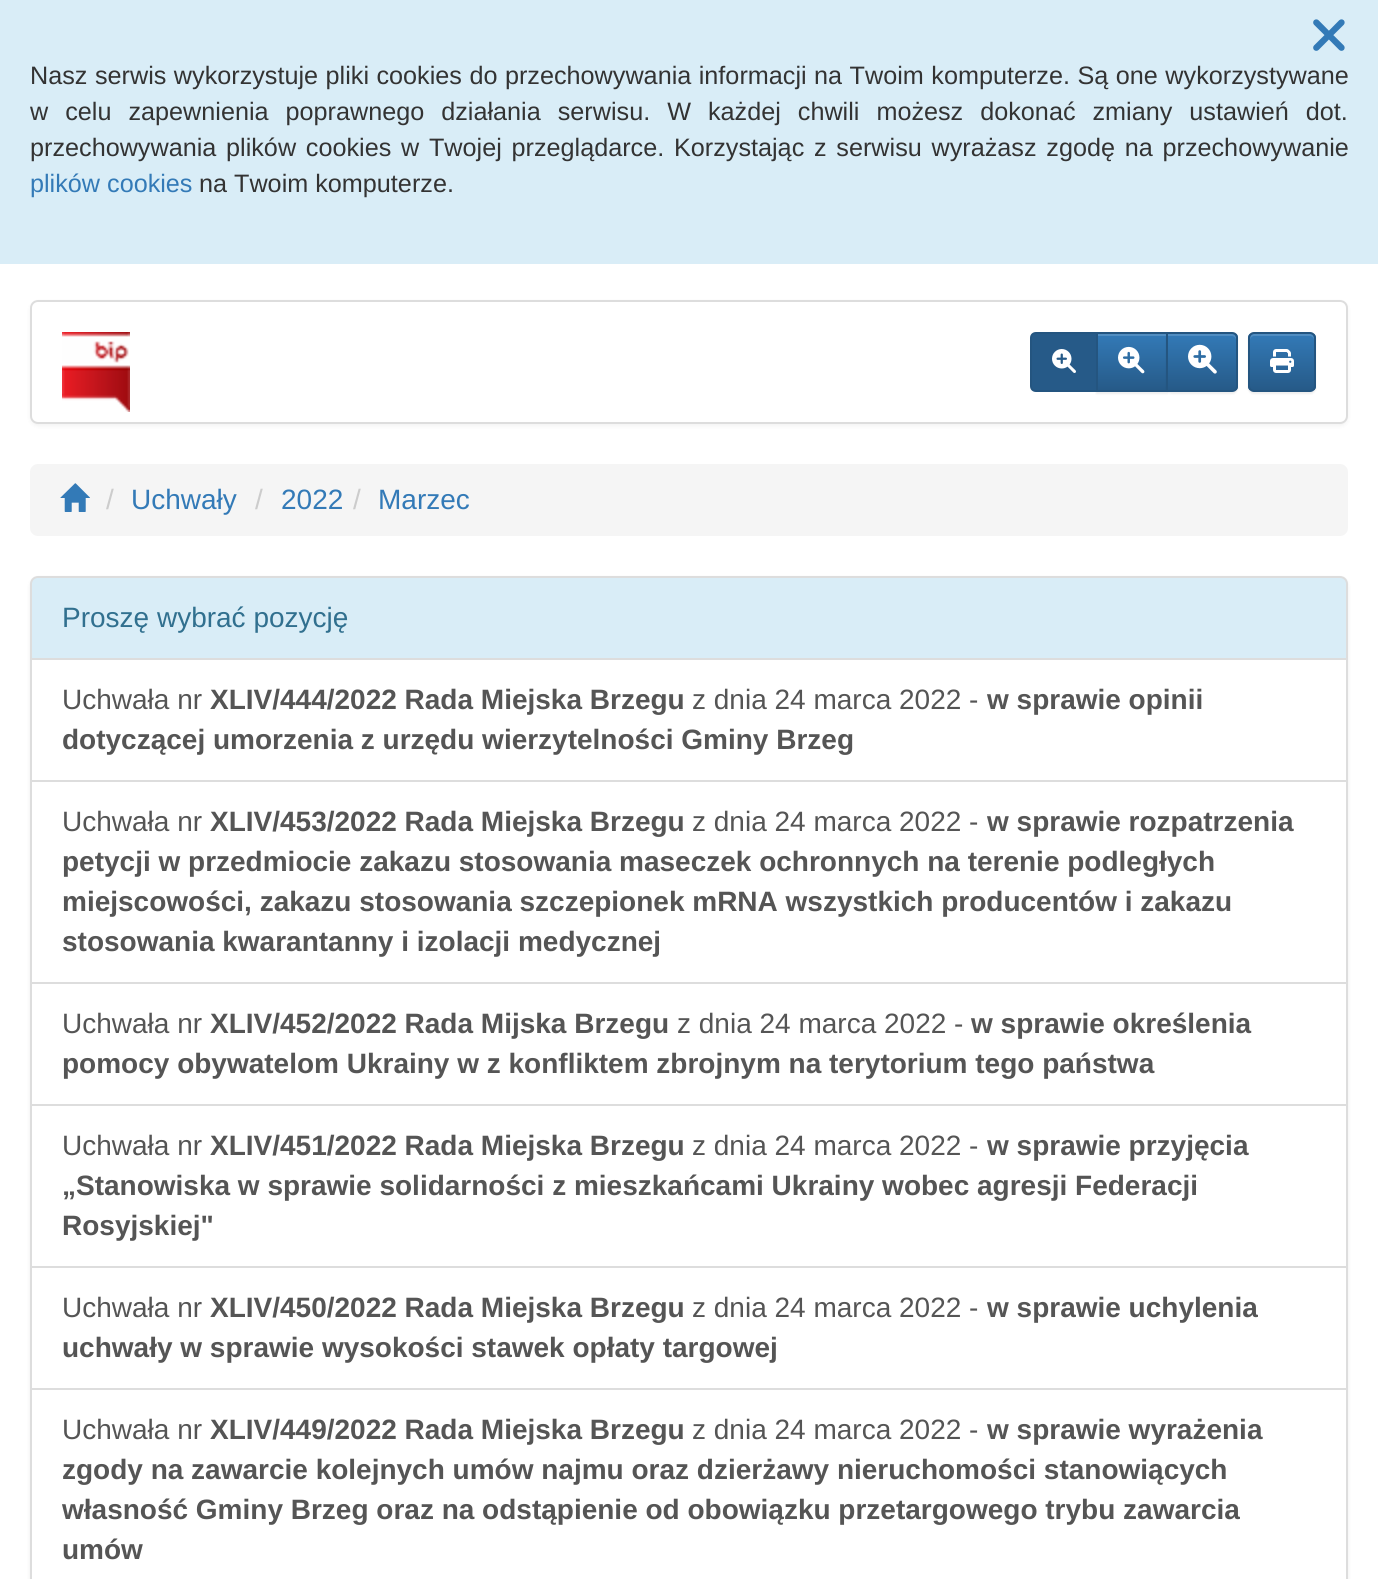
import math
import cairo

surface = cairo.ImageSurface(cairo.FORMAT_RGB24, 1378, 1579)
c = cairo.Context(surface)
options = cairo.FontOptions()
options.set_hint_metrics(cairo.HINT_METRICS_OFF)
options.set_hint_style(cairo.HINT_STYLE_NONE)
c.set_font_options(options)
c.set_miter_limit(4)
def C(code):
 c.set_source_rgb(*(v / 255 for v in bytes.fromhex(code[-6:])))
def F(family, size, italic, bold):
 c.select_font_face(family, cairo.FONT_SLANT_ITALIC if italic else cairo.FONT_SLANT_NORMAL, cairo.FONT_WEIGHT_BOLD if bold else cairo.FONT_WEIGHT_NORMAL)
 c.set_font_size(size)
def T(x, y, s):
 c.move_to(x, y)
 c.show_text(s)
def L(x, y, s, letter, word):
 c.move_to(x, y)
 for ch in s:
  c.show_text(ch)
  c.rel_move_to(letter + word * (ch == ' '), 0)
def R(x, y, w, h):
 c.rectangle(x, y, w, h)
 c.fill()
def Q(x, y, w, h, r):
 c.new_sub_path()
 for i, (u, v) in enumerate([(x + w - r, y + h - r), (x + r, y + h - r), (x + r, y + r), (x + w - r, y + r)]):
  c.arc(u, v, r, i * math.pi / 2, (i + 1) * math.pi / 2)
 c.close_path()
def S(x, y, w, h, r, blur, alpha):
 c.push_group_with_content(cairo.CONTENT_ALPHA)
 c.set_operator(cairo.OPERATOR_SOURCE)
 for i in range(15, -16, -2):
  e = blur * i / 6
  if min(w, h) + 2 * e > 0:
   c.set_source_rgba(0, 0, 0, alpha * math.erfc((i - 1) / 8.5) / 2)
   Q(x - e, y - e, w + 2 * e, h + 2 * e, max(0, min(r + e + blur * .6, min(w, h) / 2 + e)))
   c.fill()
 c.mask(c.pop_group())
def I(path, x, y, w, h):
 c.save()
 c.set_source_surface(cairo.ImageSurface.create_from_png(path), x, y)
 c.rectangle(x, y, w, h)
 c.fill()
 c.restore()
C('ffffff')
c.paint()
C('d9edf7')
R(0,0,1378,264)
I('1.png',1313,19,32,32)
F('Liberation Sans',25.2,0,0)
C('333333')
L(30,84,'Nasz serwis wykorzystuje pliki cookies do przechowywania informacji na Twoim komputerze. Są one wykorzystywane',0,.5)
L(30,120,'w celu zapewnienia poprawnego działania serwisu. W każdej chwili możesz dokonać zmiany ustawień dot.',0,10)
L(30,156,'przechowywania plików cookies w Twojej przeglądarce. Korzystając z serwisu wyrażasz zgodę na przechowywanie',0,2.75)
C('337ab7')
T(30,192,'plików cookies')
C('333333')
T(199,192,'na Twoim komputerze.')
C('000000')
S(30,302,1318,124,8,2,.05)
C('ffffff')
Q(31,301,1316,122,7)
c.fill_preserve()
C('dddddd')
c.stroke()
I('2.png',62,332,68,80)
C('000000')
S(1096,334,72,60,0,1,.07)
gradient = cairo.LinearGradient(1132,334,1132,390)
gradient.add_color_stop_rgba(0,0.2,0.478,0.718,1)
gradient.add_color_stop_rgba(1,0.149,0.353,0.533,1)
c.set_source(gradient)
R(1098,336,68,54)
C('528ec1')
R(1098,334,68,2)
c.rectangle(1097,333,70,58)
C('245580')
c.stroke()
C('265a88')
c.new_path()
c.move_to(1036,333)
c.line_to(1097,333)
c.line_to(1097,391)
c.line_to(1036,391)
c.curve_to(1033,391,1031,389,1031,386)
c.line_to(1031,338)
c.curve_to(1031,335,1033,333,1036,333)
c.close_path()
c.fill_preserve()
C('245580')
c.stroke()
I('3.png',1052,349,24,24)
I('4.png',1118,346,27,28)
C('000000')
S(1166,334,72,60,6,1,.07)
c.save()
c.new_path()
c.move_to(1166,332)
c.line_to(1232,332)
c.curve_to(1235.5,332,1238,334.5,1238,338)
c.line_to(1238,386)
c.curve_to(1238,389.5,1235.5,392,1232,392)
c.line_to(1166,392)
c.close_path()
c.clip()
gradient = cairo.LinearGradient(1202,334,1202,390)
gradient.add_color_stop_rgba(0,0.2,0.478,0.718,1)
gradient.add_color_stop_rgba(1,0.149,0.353,0.533,1)
c.set_source(gradient)
R(1168,334,70,56)
c.restore()
c.set_source_rgba(1,1,1,0.15)
c.new_path()
c.move_to(1168,336)
c.line_to(1232,336)
c.curve_to(1234,336,1236,338,1236,340)
c.line_to(1236,338)
c.curve_to(1236,336,1234,334,1232,334)
c.line_to(1168,334)
c.close_path()
c.fill()
c.new_path()
c.move_to(1167,333)
c.line_to(1232,333)
c.curve_to(1235,333,1237,335,1237,338)
c.line_to(1237,386)
c.curve_to(1237,389,1235,391,1232,391)
c.line_to(1167,391)
c.close_path()
C('245580')
c.stroke()
I('5.png',1188,344,29,30)
C('000000')
S(1248,334,68,60,6,1,.07)
c.save()
Q(1248,332,68,60,6)
c.clip()
gradient = cairo.LinearGradient(1282,334,1282,390)
gradient.add_color_stop_rgba(0,0.2,0.478,0.718,1)
gradient.add_color_stop_rgba(1,0.149,0.353,0.533,1)
c.set_source(gradient)
R(1248,334,68,56)
c.restore()
c.set_source_rgba(1,1,1,0.15)
c.new_path()
c.move_to(1254,336)
c.line_to(1310,336)
c.curve_to(1312,336,1314,338,1314,340)
c.curve_to(1314,332,1308,334,1301,334)
c.line_to(1263,334)
c.curve_to(1256,334,1250,332,1250,340)
c.curve_to(1250,338,1252,336,1254,336)
c.close_path()
c.fill()
Q(1249,333,66,58,5)
C('245580')
c.stroke()
I('6.png',1270,349,24,24)
C('f5f5f5')
Q(30,464,1318,72,8)
c.fill()
I('7.png',60,483,30,29)
F('Liberation Sans',28,0,0)
C('cccccc')
T(106,509,'/')
C('337ab7')
T(131,509,'Uchwały')
C('cccccc')
T(255,509,'/')
C('337ab7')
T(281,509,'2022')
C('cccccc')
T(353,509,'/')
C('337ab7')
T(378,509,'Marzec')
C('000000')
S(30,578,1318,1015,8,2,.07)
C('d9edf7')
c.new_path()
c.move_to(38,577)
c.line_to(1340,577)
c.curve_to(1344,577,1347,580,1347,584)
c.line_to(1347,659)
c.line_to(31,659)
c.line_to(31,584)
c.curve_to(31,580,34,577,38,577)
c.close_path()
c.fill_preserve()
C('dddddd')
c.stroke()
C('31708f')
T(62,627,'Proszę wybrać pozycję')
C('ffffff')
c.rectangle(31,659,1316,122)
c.fill_preserve()
C('dddddd')
c.stroke()
C('555555')
T(62,709,'Uchwała nr')
F('Liberation Sans',28,0,1)
T(210,709,'XLIV/444/2022 Rada Miejska Brzegu')
F('Liberation Sans',28,0,0)
T(692,709,'z dnia 24 marca 2022 -')
F('Liberation Sans',28,0,1)
T(987,709,'w sprawie opinii')
T(62,749,'dotyczącej umorzenia z urzędu wierzytelności Gminy Brzeg')
C('ffffff')
c.rectangle(31,781,1316,202)
c.fill_preserve()
C('dddddd')
c.stroke()
F('Liberation Sans',28,0,0)
C('555555')
T(62,831,'Uchwała nr')
F('Liberation Sans',28,0,1)
T(210,831,'XLIV/453/2022 Rada Miejska Brzegu')
F('Liberation Sans',28,0,0)
T(692,831,'z dnia 24 marca 2022 -')
F('Liberation Sans',28,0,1)
T(987,831,'w sprawie rozpatrzenia')
T(62,871,'petycji w przedmiocie zakazu stosowania maseczek ochronnych na terenie podległych')
T(62,911,'miejscowości, zakazu stosowania szczepionek mRNA wszystkich producentów i zakazu')
T(62,951,'stosowania kwarantanny i izolacji medycznej')
C('ffffff')
c.rectangle(31,983,1316,122)
c.fill_preserve()
C('dddddd')
c.stroke()
F('Liberation Sans',28,0,0)
C('555555')
T(62,1033,'Uchwała nr')
F('Liberation Sans',28,0,1)
T(210,1033,'XLIV/452/2022 Rada Mijska Brzegu')
F('Liberation Sans',28,0,0)
T(677,1033,'z dnia 24 marca 2022 -')
F('Liberation Sans',28,0,1)
T(971,1033,'w sprawie określenia')
T(62,1073,'pomocy obywatelom Ukrainy w z konfliktem zbrojnym na terytorium tego państwa')
C('ffffff')
c.rectangle(31,1105,1316,162)
c.fill_preserve()
C('dddddd')
c.stroke()
F('Liberation Sans',28,0,0)
C('555555')
T(62,1155,'Uchwała nr')
F('Liberation Sans',28,0,1)
T(210,1155,'XLIV/451/2022 Rada Miejska Brzegu')
F('Liberation Sans',28,0,0)
T(692,1155,'z dnia 24 marca 2022 -')
F('Liberation Sans',28,0,1)
T(987,1155,'w sprawie przyjęcia')
T(62,1195,'„Stanowiska w sprawie solidarności z mieszkańcami Ukrainy wobec agresji Federacji')
T(62,1235,'Rosyjskiej"')
C('ffffff')
c.rectangle(31,1267,1316,122)
c.fill_preserve()
C('dddddd')
c.stroke()
F('Liberation Sans',28,0,0)
C('555555')
T(62,1317,'Uchwała nr')
F('Liberation Sans',28,0,1)
T(210,1317,'XLIV/450/2022 Rada Miejska Brzegu')
F('Liberation Sans',28,0,0)
T(692,1317,'z dnia 24 marca 2022 -')
F('Liberation Sans',28,0,1)
T(987,1317,'w sprawie uchylenia')
T(62,1357,'uchwały w sprawie wysokości stawek opłaty targowej')
C('ffffff')
c.rectangle(31,1389,1316,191)
c.fill_preserve()
C('dddddd')
c.stroke()
F('Liberation Sans',28,0,0)
C('555555')
T(62,1439,'Uchwała nr')
F('Liberation Sans',28,0,1)
T(210,1439,'XLIV/449/2022 Rada Miejska Brzegu')
F('Liberation Sans',28,0,0)
T(692,1439,'z dnia 24 marca 2022 -')
F('Liberation Sans',28,0,1)
T(987,1439,'w sprawie wyrażenia')
T(62,1479,'zgody na zawarcie kolejnych umów najmu oraz dzierżawy nieruchomości stanowiących')
T(62,1519,'własność Gminy Brzeg oraz na odstąpienie od obowiązku przetargowego trybu zawarcia')
T(62,1559,'umów')
surface.write_to_png('o.png')
